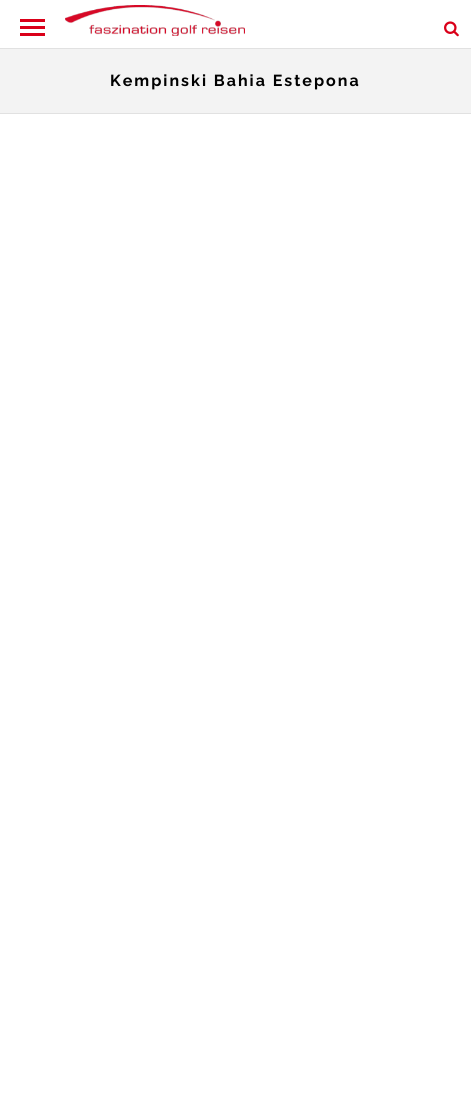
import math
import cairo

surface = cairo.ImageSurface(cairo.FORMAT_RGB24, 471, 1096)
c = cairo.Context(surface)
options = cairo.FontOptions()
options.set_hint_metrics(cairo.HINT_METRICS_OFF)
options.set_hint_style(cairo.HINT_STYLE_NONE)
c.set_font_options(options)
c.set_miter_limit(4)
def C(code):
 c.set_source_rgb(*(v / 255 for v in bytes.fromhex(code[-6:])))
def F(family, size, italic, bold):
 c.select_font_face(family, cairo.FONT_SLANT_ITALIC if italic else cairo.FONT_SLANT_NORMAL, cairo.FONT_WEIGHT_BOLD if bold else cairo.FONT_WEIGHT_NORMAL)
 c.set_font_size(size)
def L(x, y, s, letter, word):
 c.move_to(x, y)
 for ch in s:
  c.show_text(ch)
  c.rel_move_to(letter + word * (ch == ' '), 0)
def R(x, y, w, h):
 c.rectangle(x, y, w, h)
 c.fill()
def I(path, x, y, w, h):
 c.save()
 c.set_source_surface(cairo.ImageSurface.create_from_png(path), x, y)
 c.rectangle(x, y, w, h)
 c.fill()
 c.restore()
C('ffffff')
c.paint()
C('e1e1e1')
R(0,48,471,1)
C('da0019')
R(20,19,25,3)
R(20,26,25,3)
R(20,33,25,3)
I('1.png',65,5,180,31)
I('2.png',444,21,15,16)
C('f3f3f3')
R(0,49,471,64)
C('e1e1e1')
R(0,113,471,1)
F('Raleway',16,0,1)
C('000000')
L(110,86,'Kempinski Bahia Estepona',2,0)
surface.write_to_png('o.png')
